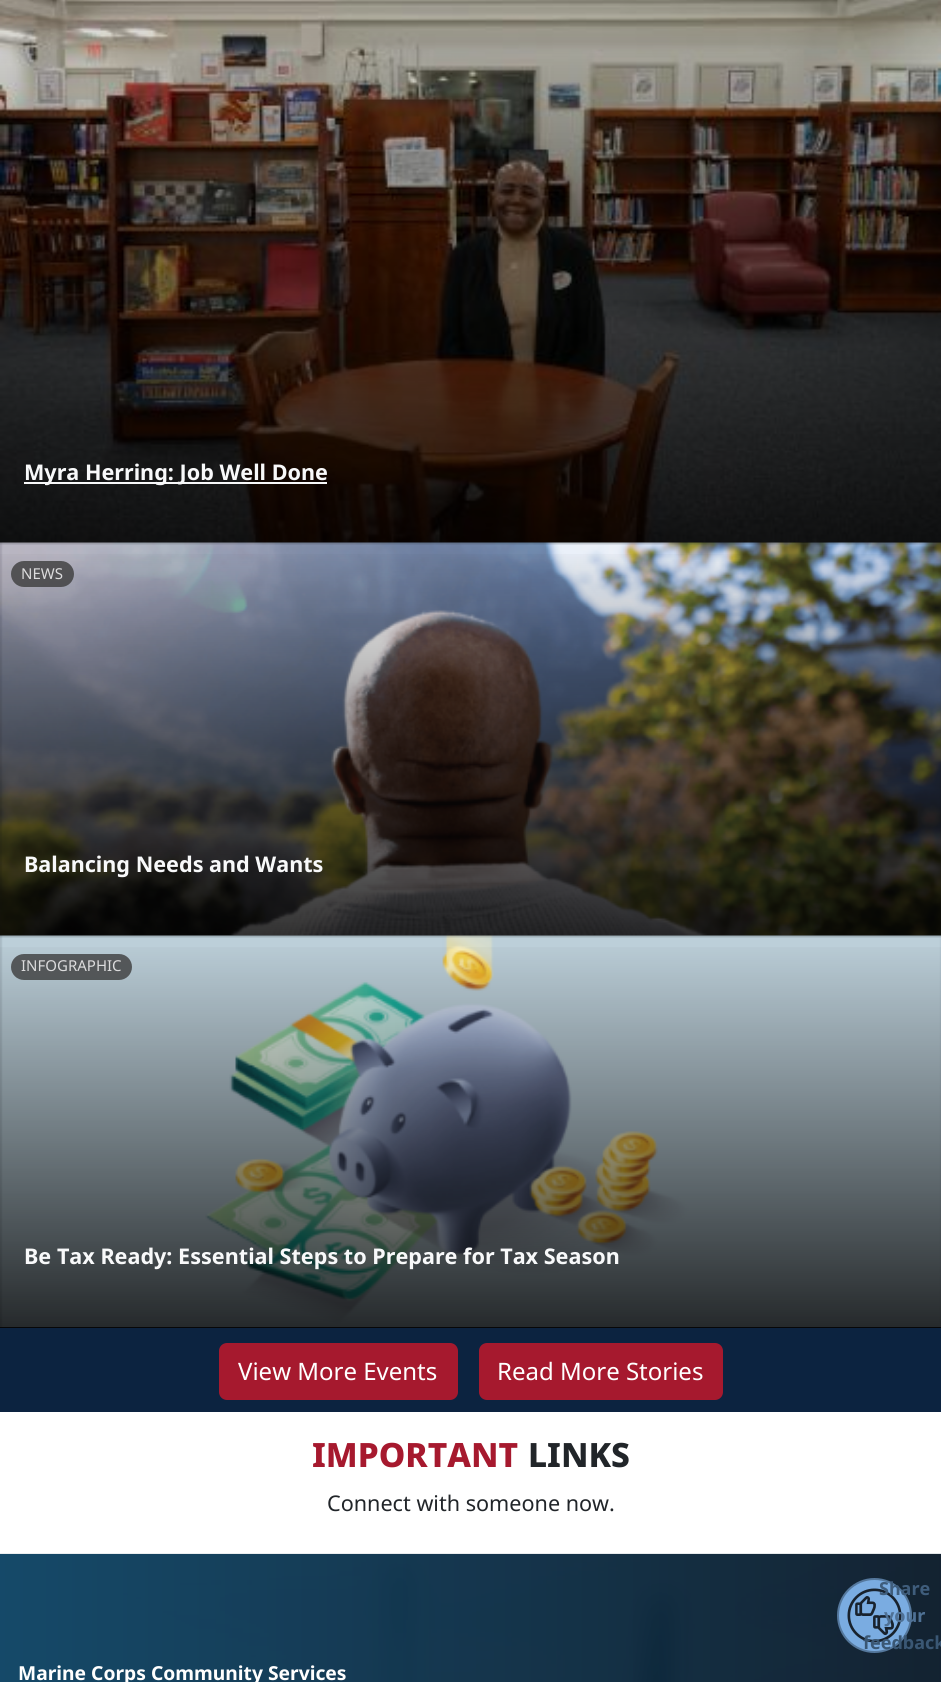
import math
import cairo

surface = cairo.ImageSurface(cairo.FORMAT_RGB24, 941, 1682)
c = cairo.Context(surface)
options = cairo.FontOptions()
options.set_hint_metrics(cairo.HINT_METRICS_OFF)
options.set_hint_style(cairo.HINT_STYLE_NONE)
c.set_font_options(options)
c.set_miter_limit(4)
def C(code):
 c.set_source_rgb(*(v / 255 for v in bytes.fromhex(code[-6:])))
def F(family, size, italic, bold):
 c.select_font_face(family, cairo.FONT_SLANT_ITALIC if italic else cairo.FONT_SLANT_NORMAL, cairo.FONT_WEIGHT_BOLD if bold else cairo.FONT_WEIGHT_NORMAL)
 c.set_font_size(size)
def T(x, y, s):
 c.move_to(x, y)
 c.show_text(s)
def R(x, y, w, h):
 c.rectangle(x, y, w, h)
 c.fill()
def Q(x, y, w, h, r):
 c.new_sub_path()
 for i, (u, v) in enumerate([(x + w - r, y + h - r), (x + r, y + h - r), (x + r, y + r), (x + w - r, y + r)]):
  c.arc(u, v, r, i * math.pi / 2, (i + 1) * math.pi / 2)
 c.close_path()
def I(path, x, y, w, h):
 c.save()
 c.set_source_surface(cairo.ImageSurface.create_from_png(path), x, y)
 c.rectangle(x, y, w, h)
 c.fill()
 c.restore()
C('ffffff')
c.paint()
C('0c2340')
R(0,1328,941,84)
C('212529')
R(0,542,941,786)
I('1.png',0,0,941,543)
gradient = cairo.LinearGradient(471,543,471,-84)
gradient.add_color_stop_rgba(0,0,0,0,.8)
gradient.add_color_stop_rgba(1,0,0,0,0)
c.set_source(gradient)
R(0,0,941,543)
C('f8f9fa')
R(24,482,303,2)
F('Noto Sans',21.6,0,1)
T(24,480,'Myra Herring: Job Well Done')
I('2.png',0,542,941,394)
gradient = cairo.LinearGradient(471,936,471,543)
gradient.add_color_stop_rgba(0,0,0,0,.8)
gradient.add_color_stop_rgba(1,0,0,0,0)
c.set_source(gradient)
R(0,554,941,382)
c.set_source_rgba(0.235,0.235,0.235,0.8)
Q(11,561,63,26,13)
c.fill()
F('Noto Sans',15,0,0)
C('dcdcdd')
T(21,579,'NEWS')
F('Noto Sans',21.6,0,1)
C('f8f9fa')
T(24,872,'Balancing Needs and Wants')
I('3.png',0,935,941,392)
gradient = cairo.LinearGradient(471,1328,471,936)
gradient.add_color_stop_rgba(0,0,0,0,.8)
gradient.add_color_stop_rgba(1,0,0,0,0)
c.set_source(gradient)
R(0,947,941,381)
c.set_source_rgba(0.235,0.235,0.235,0.8)
Q(11,954,121,26,13)
c.fill()
F('Noto Sans',15,0,0)
C('dcdcdd')
T(21,971,'INFOGRAPHIC')
F('Noto Sans',21.6,0,1)
C('f8f9fa')
T(24,1264,'Be Tax Ready: Essential Steps to Prepare for Tax Season')
C('a6192e')
Q(220,1344,237,55,7)
c.fill_preserve()
c.stroke()
F('Noto Sans',24,0,0)
C('ffffff')
T(238,1380,'View More Events')
C('a6192e')
Q(480,1344,242,55,7)
c.fill_preserve()
c.stroke()
C('ffffff')
T(497,1380,'Read More Stories')
F('Noto Sans ExtraBold',33.5,0,0)
C('a6192e')
T(312,1467,'IMPORTANT')
C('212529')
T(528,1467,'LINKS')
F('Noto Sans',21.6,0,0)
T(327,1511,'Connect with someone now.')
I('4.png',0,1553,941,129)
F('Noto Sans',19.25,0,1)
C('ffffff')
T(18,1680,'Marine Corps Community Services')
C('7aace1')
c.new_path()
c.arc(874.5,1615.5,36.5,0,2 * math.pi)
c.fill_preserve()
C('55789d')
c.stroke()
I('5.png',847,1588,55,55)
F('Noto Sans',18,0,1)
C('3f5d7c')
T(879,1595,'Share')
C('4f7195')
T(884,1622,'your')
C('3a5774')
T(863,1649,'feedback')
surface.write_to_png('o.png')
